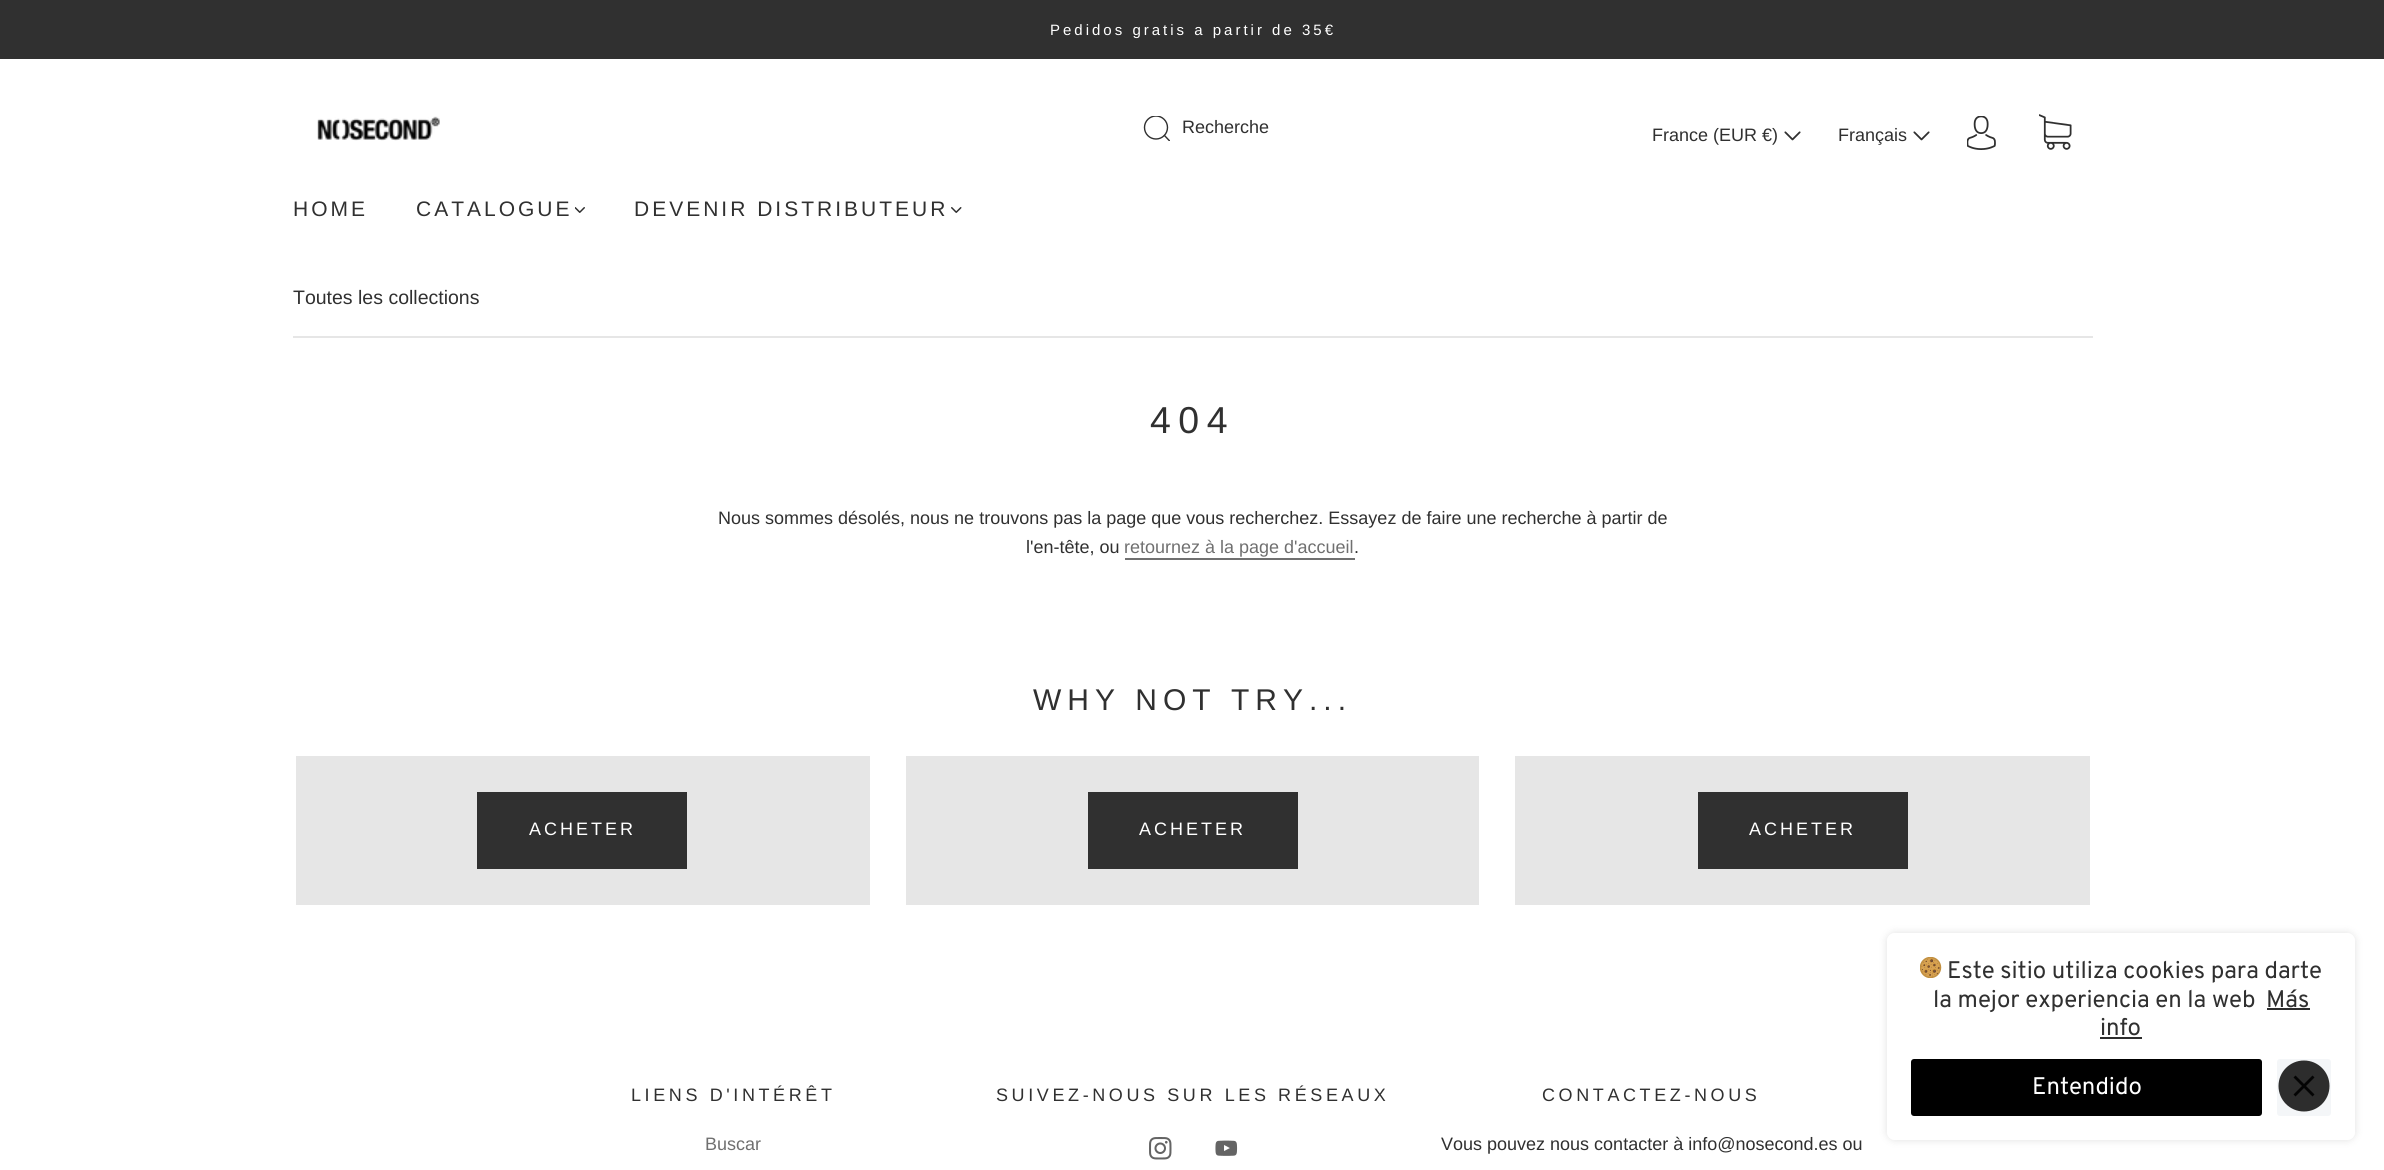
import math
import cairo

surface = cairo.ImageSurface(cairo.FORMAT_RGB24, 2384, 1170)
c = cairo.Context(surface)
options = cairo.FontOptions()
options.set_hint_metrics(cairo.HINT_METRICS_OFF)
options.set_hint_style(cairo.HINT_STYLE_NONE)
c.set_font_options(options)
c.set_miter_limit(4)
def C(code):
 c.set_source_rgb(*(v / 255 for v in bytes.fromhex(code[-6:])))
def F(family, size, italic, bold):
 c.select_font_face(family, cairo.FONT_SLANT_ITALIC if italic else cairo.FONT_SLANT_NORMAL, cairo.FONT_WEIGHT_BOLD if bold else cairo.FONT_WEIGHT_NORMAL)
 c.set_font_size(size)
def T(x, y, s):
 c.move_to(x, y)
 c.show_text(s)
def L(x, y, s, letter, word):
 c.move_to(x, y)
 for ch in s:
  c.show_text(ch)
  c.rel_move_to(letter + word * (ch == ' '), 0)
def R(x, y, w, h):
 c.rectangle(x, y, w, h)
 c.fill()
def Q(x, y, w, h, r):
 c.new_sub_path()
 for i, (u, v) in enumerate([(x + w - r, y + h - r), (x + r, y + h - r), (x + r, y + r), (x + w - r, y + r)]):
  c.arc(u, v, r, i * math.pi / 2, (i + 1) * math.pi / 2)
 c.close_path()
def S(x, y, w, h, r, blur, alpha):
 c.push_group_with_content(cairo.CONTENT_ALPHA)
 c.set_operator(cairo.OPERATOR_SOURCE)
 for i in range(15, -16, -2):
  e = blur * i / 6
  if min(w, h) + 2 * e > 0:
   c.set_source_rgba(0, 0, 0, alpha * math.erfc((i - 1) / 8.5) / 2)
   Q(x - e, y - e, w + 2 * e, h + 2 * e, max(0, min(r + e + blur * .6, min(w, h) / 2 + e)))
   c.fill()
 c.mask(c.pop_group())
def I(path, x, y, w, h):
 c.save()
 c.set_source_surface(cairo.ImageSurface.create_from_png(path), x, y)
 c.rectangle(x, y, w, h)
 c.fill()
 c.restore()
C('ffffff')
c.paint()
C('303030')
R(0,0,2384,59)
F('Liberation Sans',15,0,0)
C('ffffff')
L(1050,35,'Pedidos gratis a partir de 35€',3,0)
I('1.png',317,116,123,25)
c.save()
c.rectangle(1143,116,27,25)
c.clip()
c.arc(1156,127.5,11.5,0,2 * math.pi)
C('303030')
c.set_line_width(1.4)
c.stroke()
c.new_path()
c.move_to(1164,135)
c.line_to(1172,143.5)
c.stroke()
c.restore()
F('Liberation Sans',18,0,0)
C('303030')
T(1182,133,'Recherche')
T(1652,141,'France (EUR €)')
I('2.png',1784,131,17,10)
T(1838,141,'Français')
I('2.png',1913,131,17,10)
I('3.png',1967,116,29,34)
I('4.png',2039,114,33,36)
F('Liberation Sans',21,0,0)
L(293,216,'HOME',3,0)
L(416,216,'CATALOGUE',3,0)
I('5.png',575,207,10,6)
L(634,216,'DEVENIR DISTRIBUTEUR',3,0)
I('6.png',951,207,11,6)
C('e6e6e6')
R(293,336,1800,2)
F('Liberation Sans',19.5,0,0)
C('303030')
T(293,304,'Toutes les collections')
F('Liberation Sans',37.5,0,0)
L(1150,433,'404',7.5,0)
F('Liberation Sans',18,0,0)
T(718,524,'Nous sommes désolés, nous ne trouvons pas la page que vous recherchez. Essayez de faire une recherche à partir de')
T(1026,553,'l\'en-tête, ou')
C('707070')
T(1124,553,'retournez à la page d\'accueil')
R(1125,558,230,2)
C('303030')
T(1354,553,'.')
F('Liberation Sans',30,0,0)
L(1033,710,'WHY NOT TRY...',6,0)
C('e6e6e6')
R(296,756,574,149)
C('303030')
R(477,792,210,77)
F('Liberation Sans',18,0,0)
C('ffffff')
L(529,835,'ACHETER',3,0)
C('e6e6e6')
R(906,756,573,149)
C('303030')
R(1088,792,210,77)
C('ffffff')
L(1139,835,'ACHETER',3,0)
C('e6e6e6')
R(1515,756,575,149)
C('303030')
R(1698,792,210,77)
C('ffffff')
L(1749,835,'ACHETER',3,0)
C('303030')
L(631,1101,'LIENS D\'INTÉRÊT',3.6,0)
C('707070')
T(705,1150,'Buscar')
C('303030')
L(996,1101,'SUIVEZ-NOUS SUR LES RÉSEAUX',3.6,0)
I('7.png',1149,1137,23,23)
I('8.png',1215,1140,23,16)
L(1542,1101,'CONTACTEZ-NOUS',3.6,0)
T(1441,1150,'Vous pouvez nous contacter à info@nosecond.es ou')
c.save()
c.set_fill_rule(cairo.FILL_RULE_EVEN_ODD)
c.new_path()
c.move_to(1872,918)
c.line_to(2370,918)
c.line_to(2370,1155)
c.line_to(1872,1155)
c.close_path()
c.move_to(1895,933)
c.line_to(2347,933)
c.curve_to(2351.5,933,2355,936.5,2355,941)
c.line_to(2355,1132)
c.curve_to(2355,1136.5,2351.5,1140,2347,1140)
c.line_to(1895,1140)
c.curve_to(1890.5,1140,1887,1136.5,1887,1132)
c.line_to(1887,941)
c.curve_to(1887,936.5,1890.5,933,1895,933)
c.close_path()
c.clip()
C('000000')
S(1887,933,468,207,8,4.5,.12)
c.restore()
I('9.png',1920,957,22,21)
F('Overpass',24,0,0)
T(1947,978,'Este sitio utiliza cookies para darte')
T(1933,1007,'la mejor experiencia en la web')
T(2266,1007,'Más')
C('2d2d2d')
R(2267,1008,43,2)
C('303030')
T(2100,1035,'info')
C('2d2d2d')
R(2100,1037,42,2)
C('000000')
Q(1911,1059,351,57,3)
c.fill()
C('ffffff')
T(2032,1094,'Entendido')
C('f4f6f8')
Q(2277,1059,54,57,3)
c.fill()
C('2d2d2d')
c.arc(2304,1086,25.5,0,2 * math.pi)
c.fill()
C('040404')
c.new_path()
c.move_to(2314.5,1077.5)
c.line_to(2312.5,1075.5)
c.line_to(2304,1084)
c.line_to(2295.5,1075.5)
c.line_to(2293.5,1077.5)
c.line_to(2302,1086)
c.line_to(2293.5,1094.5)
c.line_to(2295.5,1096.5)
c.line_to(2304,1088)
c.line_to(2312.5,1096.5)
c.line_to(2314.5,1094.5)
c.line_to(2306,1086)
c.close_path()
c.fill()
surface.write_to_png('o.png')
